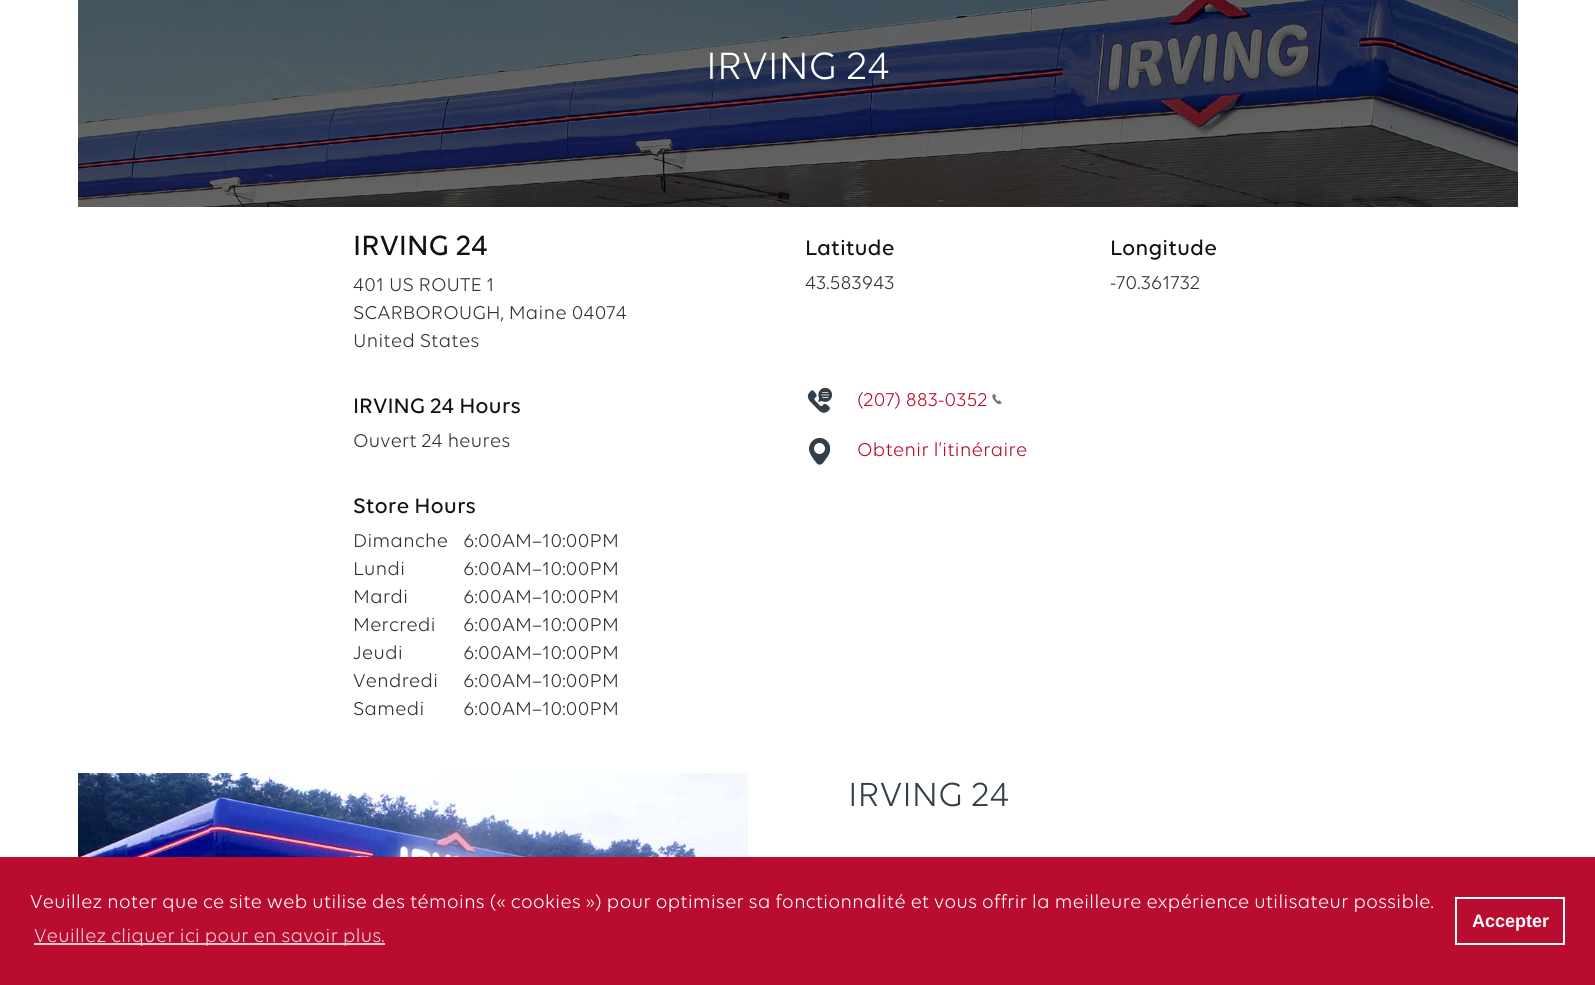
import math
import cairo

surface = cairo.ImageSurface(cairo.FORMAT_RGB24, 1595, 985)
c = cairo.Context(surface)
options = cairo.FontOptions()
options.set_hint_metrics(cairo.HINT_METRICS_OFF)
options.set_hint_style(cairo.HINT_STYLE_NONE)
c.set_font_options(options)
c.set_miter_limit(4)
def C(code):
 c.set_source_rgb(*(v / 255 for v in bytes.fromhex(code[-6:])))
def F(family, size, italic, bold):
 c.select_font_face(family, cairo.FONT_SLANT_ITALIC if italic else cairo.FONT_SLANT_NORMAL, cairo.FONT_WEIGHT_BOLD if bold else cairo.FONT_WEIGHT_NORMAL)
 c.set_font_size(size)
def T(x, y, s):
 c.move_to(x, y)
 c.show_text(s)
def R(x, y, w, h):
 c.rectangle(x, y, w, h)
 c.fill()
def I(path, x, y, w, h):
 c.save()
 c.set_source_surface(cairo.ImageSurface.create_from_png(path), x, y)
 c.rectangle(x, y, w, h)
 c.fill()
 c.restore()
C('ffffff')
c.paint()
I('1.png',78,0,1440,207)
F('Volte',41,0,0)
C('ffffff')
T(706,79,'IRVING 24')
F('Volte Medium',30,0,0)
C('111111')
T(353,255,'IRVING 24')
F('Volte',20,0,0)
C('333333')
T(353,291,'401 US ROUTE 1')
T(353,319,'SCARBOROUGH, Maine 04074')
T(353,347,'United States')
F('Volte Medium',22.5,0,0)
C('111111')
T(353,413,'IRVING 24 Hours')
F('Volte',20,0,0)
C('333333')
T(353,447,'Ouvert 24 heures')
F('Volte Medium',22.5,0,0)
C('111111')
T(353,513,'Store Hours')
F('Volte',20,0,0)
C('333333')
T(353,547,'Dimanche')
T(463,547,'6:00AM–10:00PM')
T(353,575,'Lundi')
T(463,575,'6:00AM–10:00PM')
T(353,603,'Mardi')
T(463,603,'6:00AM–10:00PM')
T(353,631,'Mercredi')
T(463,631,'6:00AM–10:00PM')
T(353,659,'Jeudi')
T(463,659,'6:00AM–10:00PM')
T(353,687,'Vendredi')
T(463,687,'6:00AM–10:00PM')
T(353,715,'Samedi')
T(463,715,'6:00AM–10:00PM')
F('Volte Medium',22.5,0,0)
C('111111')
T(805,255,'Latitude')
F('Volte',20,0,0)
C('333333')
T(805,289,'43.583943')
F('Volte Medium',22.5,0,0)
C('111111')
T(1110,255,'Longitude')
F('Volte',20,0,0)
C('333333')
T(1110,289,'-70.361732')
I('2.png',807,387,26,26)
C('ba0c2f')
T(857,406,'(207) 883-0352')
I('3.png',992,394,10,11)
I('4.png',809,437,21,28)
T(857,456,'Obtenir l’itinéraire')
I('5.png',78,773,670,84)
F('Volte',36,0,0)
C('333f48')
T(848,806,'IRVING 24')
C('ba0c2f')
R(0,857,1595,128)
F('Volte',20,0,0)
C('ffffff')
T(30,908,'Veuillez noter que ce site web utilise des témoins (« cookies ») pour optimiser sa fonctionnalité et vous offrir la meilleure expérience utilisateur possible.')
C('f1ced5')
R(34,943,351,2)
T(34,942,'Veuillez cliquer ici pour en savoir plus.')
c.rectangle(1456,898,108,46)
C('ffffff')
c.stroke()
F('Liberation Sans',18,0,1)
T(1472,927,'Accepter')
surface.write_to_png('o.png')
